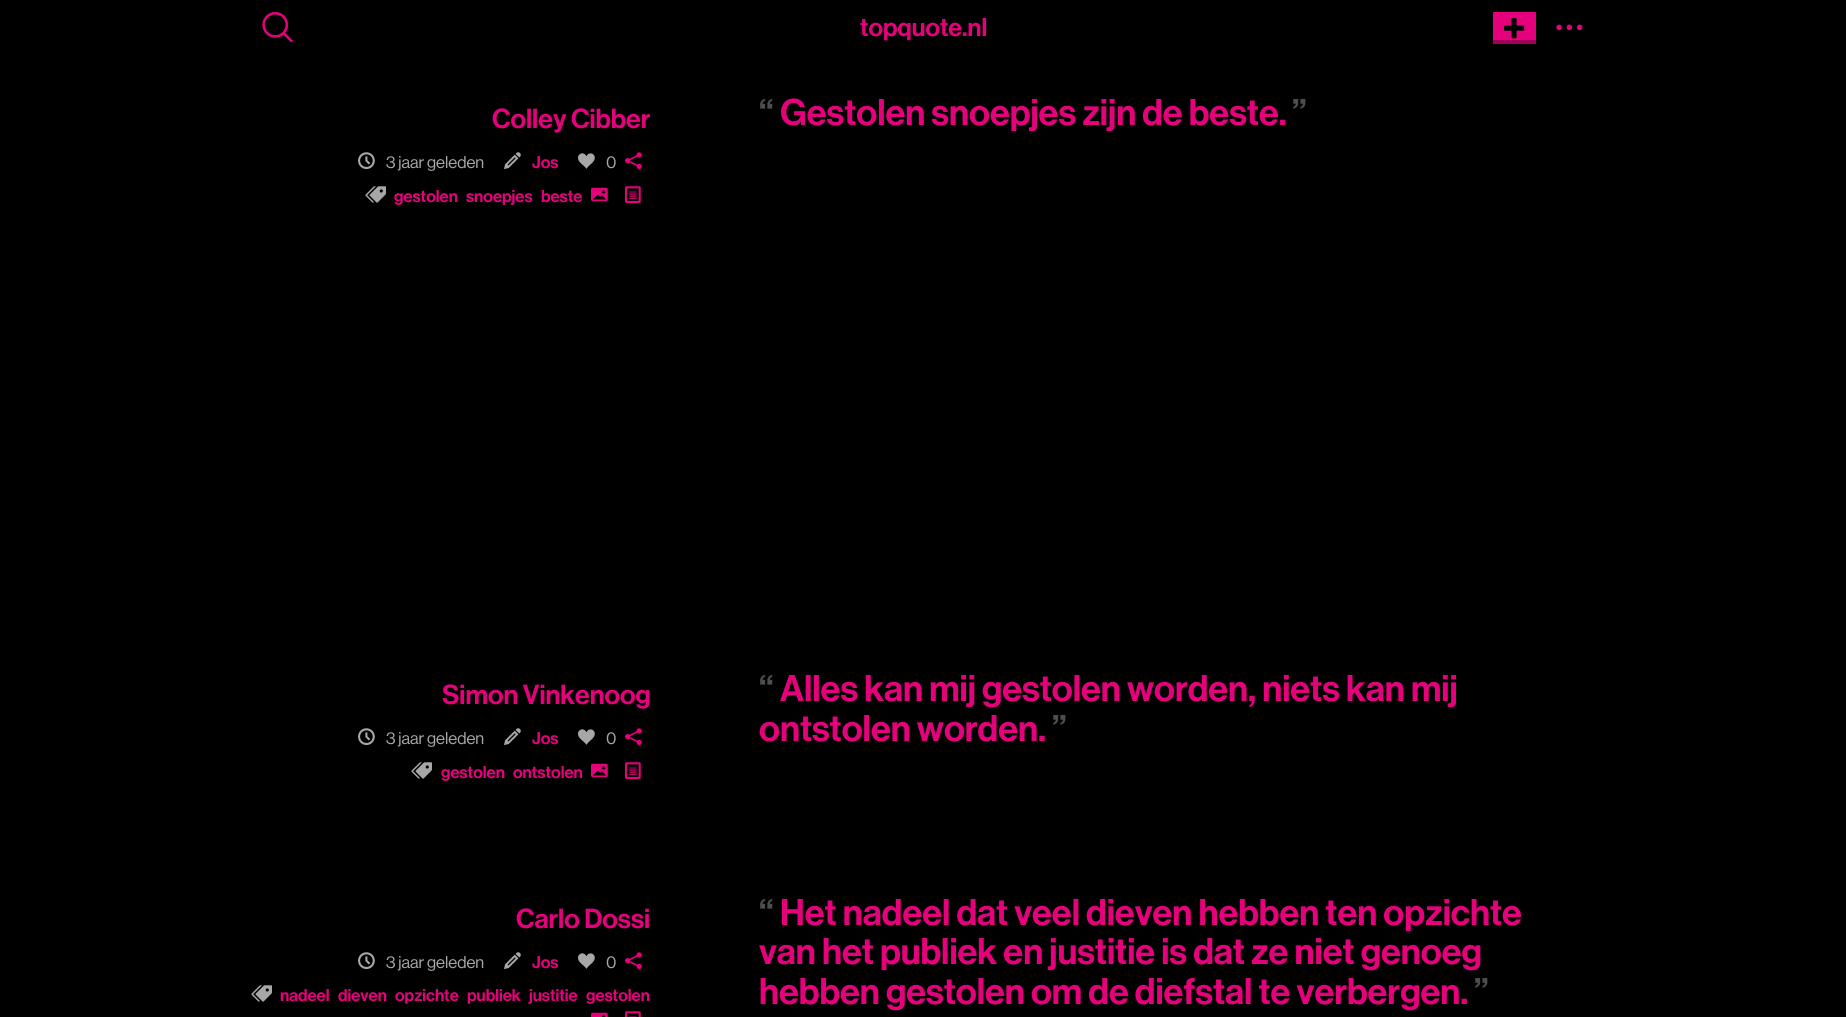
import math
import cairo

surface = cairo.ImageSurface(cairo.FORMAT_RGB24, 1846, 1017)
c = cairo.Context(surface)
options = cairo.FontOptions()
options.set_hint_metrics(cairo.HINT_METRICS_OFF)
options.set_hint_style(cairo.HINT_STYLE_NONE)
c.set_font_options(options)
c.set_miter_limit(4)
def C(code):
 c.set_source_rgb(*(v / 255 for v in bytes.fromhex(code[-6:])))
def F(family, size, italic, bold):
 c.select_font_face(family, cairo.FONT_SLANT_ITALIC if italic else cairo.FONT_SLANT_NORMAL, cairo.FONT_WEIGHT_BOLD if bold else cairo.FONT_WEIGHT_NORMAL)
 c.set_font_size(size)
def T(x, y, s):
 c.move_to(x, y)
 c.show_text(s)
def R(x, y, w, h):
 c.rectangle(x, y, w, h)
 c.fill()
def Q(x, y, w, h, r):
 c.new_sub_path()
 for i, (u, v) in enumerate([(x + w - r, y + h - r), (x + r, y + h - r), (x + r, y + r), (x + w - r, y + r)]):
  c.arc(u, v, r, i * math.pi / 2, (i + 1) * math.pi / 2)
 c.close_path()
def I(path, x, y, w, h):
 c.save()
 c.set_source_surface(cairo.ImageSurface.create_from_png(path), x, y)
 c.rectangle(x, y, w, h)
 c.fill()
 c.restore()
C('000000')
c.paint()
I('1.png',262,11,31,32)
F('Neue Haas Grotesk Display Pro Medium',25.25,0,0)
C('e5007c')
T(860,36,'topquote.nl')
Q(1493,12,43,32,1)
c.fill()
I('2.png',1504,18,21,21)
C('a00057')
R(1493,40,43,4)
I('3.png',1556,24,27,7)
F('Neue Haas Grotesk Display Pro Medium',27,0,0)
C('e5007c')
T(492,128,'Colley Cibber')
F('Neue Haas Grotesk Display Pro Medium',36.4,0,0)
C('4d4d4d')
T(759,125,'“')
C('e5007c')
T(780,125,'Gestolen snoepjes zijn de beste.')
C('4d4d4d')
T(1292,125,'”')
I('4.png',358,152,17,17)
F('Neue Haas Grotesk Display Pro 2 Medium',16.75,0,0)
C('a7a7a7')
T(386,168,'3 jaar geleden')
I('5.png',504,152,17,17)
F('Neue Haas Grotesk Display Pro Medium',16.75,0,0)
C('e5007c')
T(532,168,'Jos')
I('6.png',578,153,17,16)
F('Neue Haas Grotesk Display Pro 2 Medium',16.75,0,0)
C('a7a7a7')
T(606,168,'0')
I('7.png',625,152,17,17)
I('8.png',365,186,21,17)
F('Neue Haas Grotesk Display Pro Medium',16.75,0,0)
C('e5007c')
T(394,202,'gestolen')
T(466,202,'snoepjes')
T(541,202,'beste')
I('9.png',591,187,17,15)
I('10.png',625,186,16,18)
F('Neue Haas Grotesk Display Pro Medium',27,0,0)
T(442,704,'Simon Vinkenoog')
F('Neue Haas Grotesk Display Pro Medium',36.4,0,0)
C('4d4d4d')
T(759,701,'“')
C('e5007c')
T(780,701,'Alles kan mij gestolen worden, niets kan mij')
T(759,741,'ontstolen worden.')
C('4d4d4d')
T(1052,741,'”')
I('4.png',358,728,17,17)
F('Neue Haas Grotesk Display Pro 2 Medium',16.75,0,0)
C('a7a7a7')
T(386,744,'3 jaar geleden')
I('5.png',504,728,17,17)
F('Neue Haas Grotesk Display Pro Medium',16.75,0,0)
C('e5007c')
T(532,744,'Jos')
I('6.png',578,729,17,16)
F('Neue Haas Grotesk Display Pro 2 Medium',16.75,0,0)
C('a7a7a7')
T(606,744,'0')
I('7.png',625,728,17,17)
I('8.png',411,762,21,17)
F('Neue Haas Grotesk Display Pro Medium',16.75,0,0)
C('e5007c')
T(441,778,'gestolen')
T(513,778,'ontstolen')
I('9.png',591,763,17,15)
I('10.png',625,762,16,18)
F('Neue Haas Grotesk Display Pro Medium',27,0,0)
T(516,928,'Carlo Dossi')
F('Neue Haas Grotesk Display Pro Medium',36.4,0,0)
C('4d4d4d')
T(759,925,'“')
C('e5007c')
T(780,925,'Het nadeel dat veel dieven hebben ten opzichte')
T(759,964,'van het publiek en justitie is dat ze niet genoeg')
T(759,1004,'hebben gestolen om de diefstal te verbergen.')
C('4d4d4d')
T(1474,1004,'”')
I('4.png',358,952,17,17)
F('Neue Haas Grotesk Display Pro 2 Medium',16.75,0,0)
C('a7a7a7')
T(386,968,'3 jaar geleden')
I('5.png',504,952,17,17)
F('Neue Haas Grotesk Display Pro Medium',16.75,0,0)
C('e5007c')
T(532,968,'Jos')
I('6.png',578,953,17,16)
F('Neue Haas Grotesk Display Pro 2 Medium',16.75,0,0)
C('a7a7a7')
T(606,968,'0')
I('7.png',625,952,17,17)
I('8.png',251,985,21,17)
F('Neue Haas Grotesk Display Pro Medium',16.75,0,0)
C('e5007c')
T(280,1001,'nadeel')
T(338,1001,'dieven')
T(395,1001,'opzichte')
T(467,1001,'publiek')
T(529,1001,'justitie')
T(586,1001,'gestolen')
I('11.png',591,1012,17,5)
I('12.png',625,1011,16,6)
surface.write_to_png('o.png')
